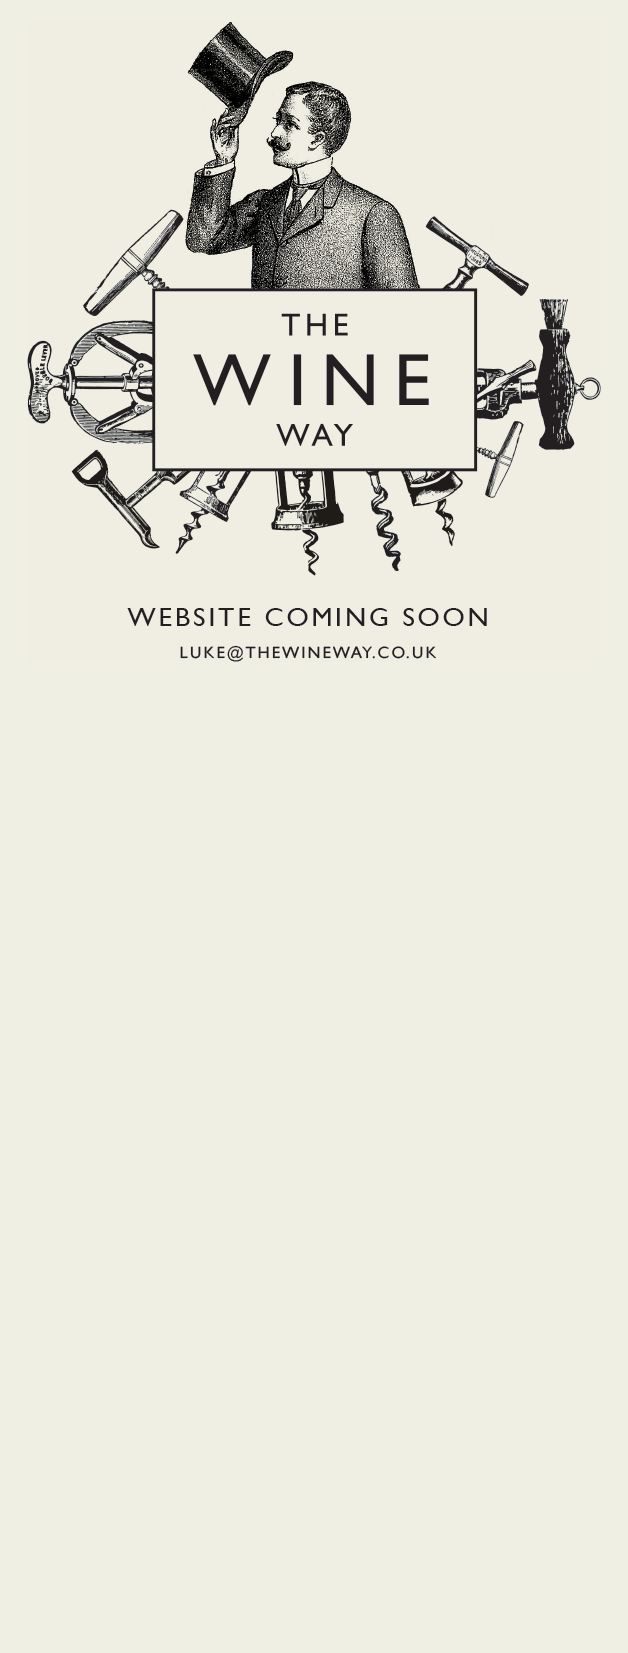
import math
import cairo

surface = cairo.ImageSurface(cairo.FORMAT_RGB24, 628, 1653)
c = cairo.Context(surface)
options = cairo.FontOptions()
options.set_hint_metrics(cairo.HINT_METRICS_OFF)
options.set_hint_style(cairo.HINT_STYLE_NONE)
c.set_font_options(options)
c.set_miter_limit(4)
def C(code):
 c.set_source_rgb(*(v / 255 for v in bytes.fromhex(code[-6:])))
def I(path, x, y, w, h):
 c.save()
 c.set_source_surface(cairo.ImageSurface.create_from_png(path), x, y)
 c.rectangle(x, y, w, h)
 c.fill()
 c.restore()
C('f0efe3')
c.paint()
I('1.png',27,22,574,640)
surface.write_to_png('o.png')
